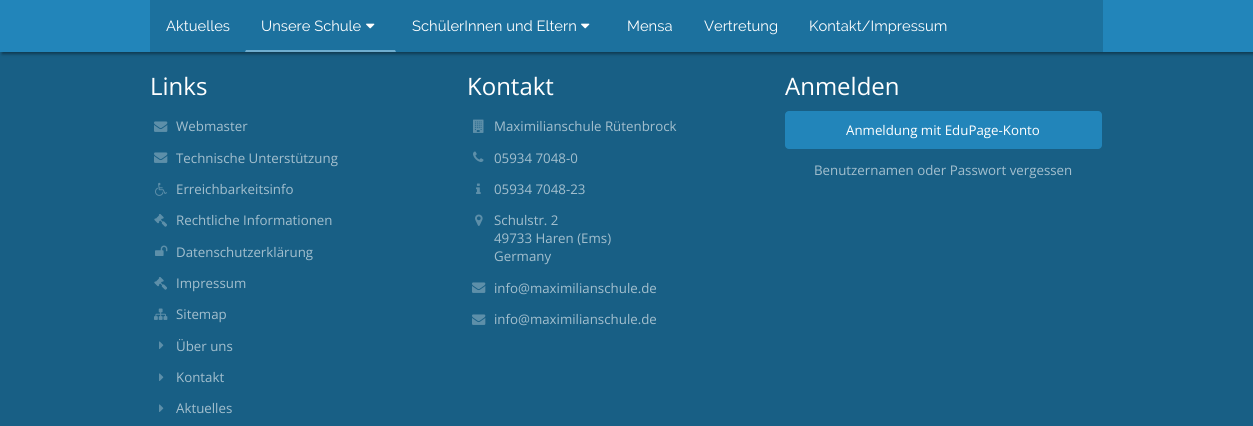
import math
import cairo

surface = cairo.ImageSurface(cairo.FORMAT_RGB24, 1253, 426)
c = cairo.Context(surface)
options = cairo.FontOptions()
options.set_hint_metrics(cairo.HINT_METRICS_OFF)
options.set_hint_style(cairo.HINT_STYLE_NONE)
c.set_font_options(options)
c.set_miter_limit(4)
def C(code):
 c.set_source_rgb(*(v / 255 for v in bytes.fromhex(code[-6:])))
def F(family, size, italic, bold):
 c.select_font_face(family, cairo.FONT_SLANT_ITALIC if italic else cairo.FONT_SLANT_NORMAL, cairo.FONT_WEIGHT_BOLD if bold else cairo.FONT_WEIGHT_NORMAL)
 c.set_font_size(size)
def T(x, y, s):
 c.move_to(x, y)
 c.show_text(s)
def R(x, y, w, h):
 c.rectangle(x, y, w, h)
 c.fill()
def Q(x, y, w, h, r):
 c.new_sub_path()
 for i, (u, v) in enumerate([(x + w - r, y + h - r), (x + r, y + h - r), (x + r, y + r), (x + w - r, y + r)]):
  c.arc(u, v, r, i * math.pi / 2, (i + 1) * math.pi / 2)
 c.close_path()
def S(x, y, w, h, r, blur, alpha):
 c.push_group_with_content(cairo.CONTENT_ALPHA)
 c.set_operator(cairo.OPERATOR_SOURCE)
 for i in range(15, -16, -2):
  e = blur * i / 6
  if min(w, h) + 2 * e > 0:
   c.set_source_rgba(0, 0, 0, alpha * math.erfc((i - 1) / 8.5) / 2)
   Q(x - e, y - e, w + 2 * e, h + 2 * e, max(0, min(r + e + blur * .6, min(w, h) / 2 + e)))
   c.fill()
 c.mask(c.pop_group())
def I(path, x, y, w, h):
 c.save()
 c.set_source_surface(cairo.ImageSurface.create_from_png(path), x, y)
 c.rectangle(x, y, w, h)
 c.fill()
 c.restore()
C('185f85')
c.paint()
C('000000')
S(2,2,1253,52,0,1.5,.4)
C('2285ba')
R(0,0,1253,52)
C('1c719e')
R(150,0,953,52)
F('Raleway',14.75,0,0)
C('ffffff')
T(166,31,'Aktuelles')
C('6faed0')
c.new_path()
c.move_to(396,52)
c.line_to(245,52)
c.line_to(246,50)
c.line_to(395,50)
c.close_path()
c.fill()
C('ffffff')
T(261,31,'Unsere Schule')
I('1.png',366,23,9,6)
T(412,31,'SchülerInnen und Eltern')
I('1.png',581,23,9,6)
T(627,31,'Mensa')
T(704,31,'Vertretung')
T(809,31,'Kontakt/Impressum')
F('Open Sans',24,0,0)
T(150,95,'Links')
I('2.png',154,121,14,11)
F('Open Sans',13.3,0,0)
C('a3bfce')
T(176,131,'Webmaster')
I('2.png',154,152,14,11)
T(176,163,'Technische Unterstützung')
I('3.png',155,182,12,14)
T(176,194,'Erreichbarkeitsinfo')
I('4.png',154,214,13,13)
T(176,225,'Rechtliche Informationen')
I('5.png',155,245,13,11)
T(176,257,'Datenschutzerklärung')
I('4.png',154,277,13,13)
T(176,288,'Impressum')
I('6.png',154,308,14,12)
T(176,319,'Sitemap')
I('7.png',159,341,5,8)
T(176,351,'Über uns')
I('7.png',159,373,5,8)
T(176,382,'Kontakt')
I('7.png',159,404,5,8)
T(176,413,'Aktuelles')
F('Open Sans',24,0,0)
C('ffffff')
T(467,95,'Kontakt')
I('8.png',473,119,11,14)
F('Open Sans',13.3,0,0)
C('a3bfce')
T(494,131,'Maximilianschule Rütenbrock')
I('9.png',473,151,11,11)
T(494,163,'05934 7048-0')
I('10.png',476,183,5,11)
T(494,194,'05934 7048-23')
I('11.png',475,214,8,12)
T(494,225,'Schulstr. 2')
T(494,243,'49733 Haren (Ems)')
T(494,261,'Germany')
I('2.png',472,282,14,11)
T(494,293,'info@maximilianschule.de')
I('2.png',472,314,14,11)
T(494,324,'info@maximilianschule.de')
F('Open Sans',24,0,0)
C('ffffff')
T(785,95,'Anmelden')
C('2285ba')
Q(785,111,317,38,4)
c.fill()
F('Open Sans',13.3,0,0)
C('ffffff')
T(846,135,'Anmeldung mit EduPage-Konto')
C('a3bfce')
T(814,175,'Benutzernamen oder Passwort vergessen')
surface.write_to_png('o.png')
